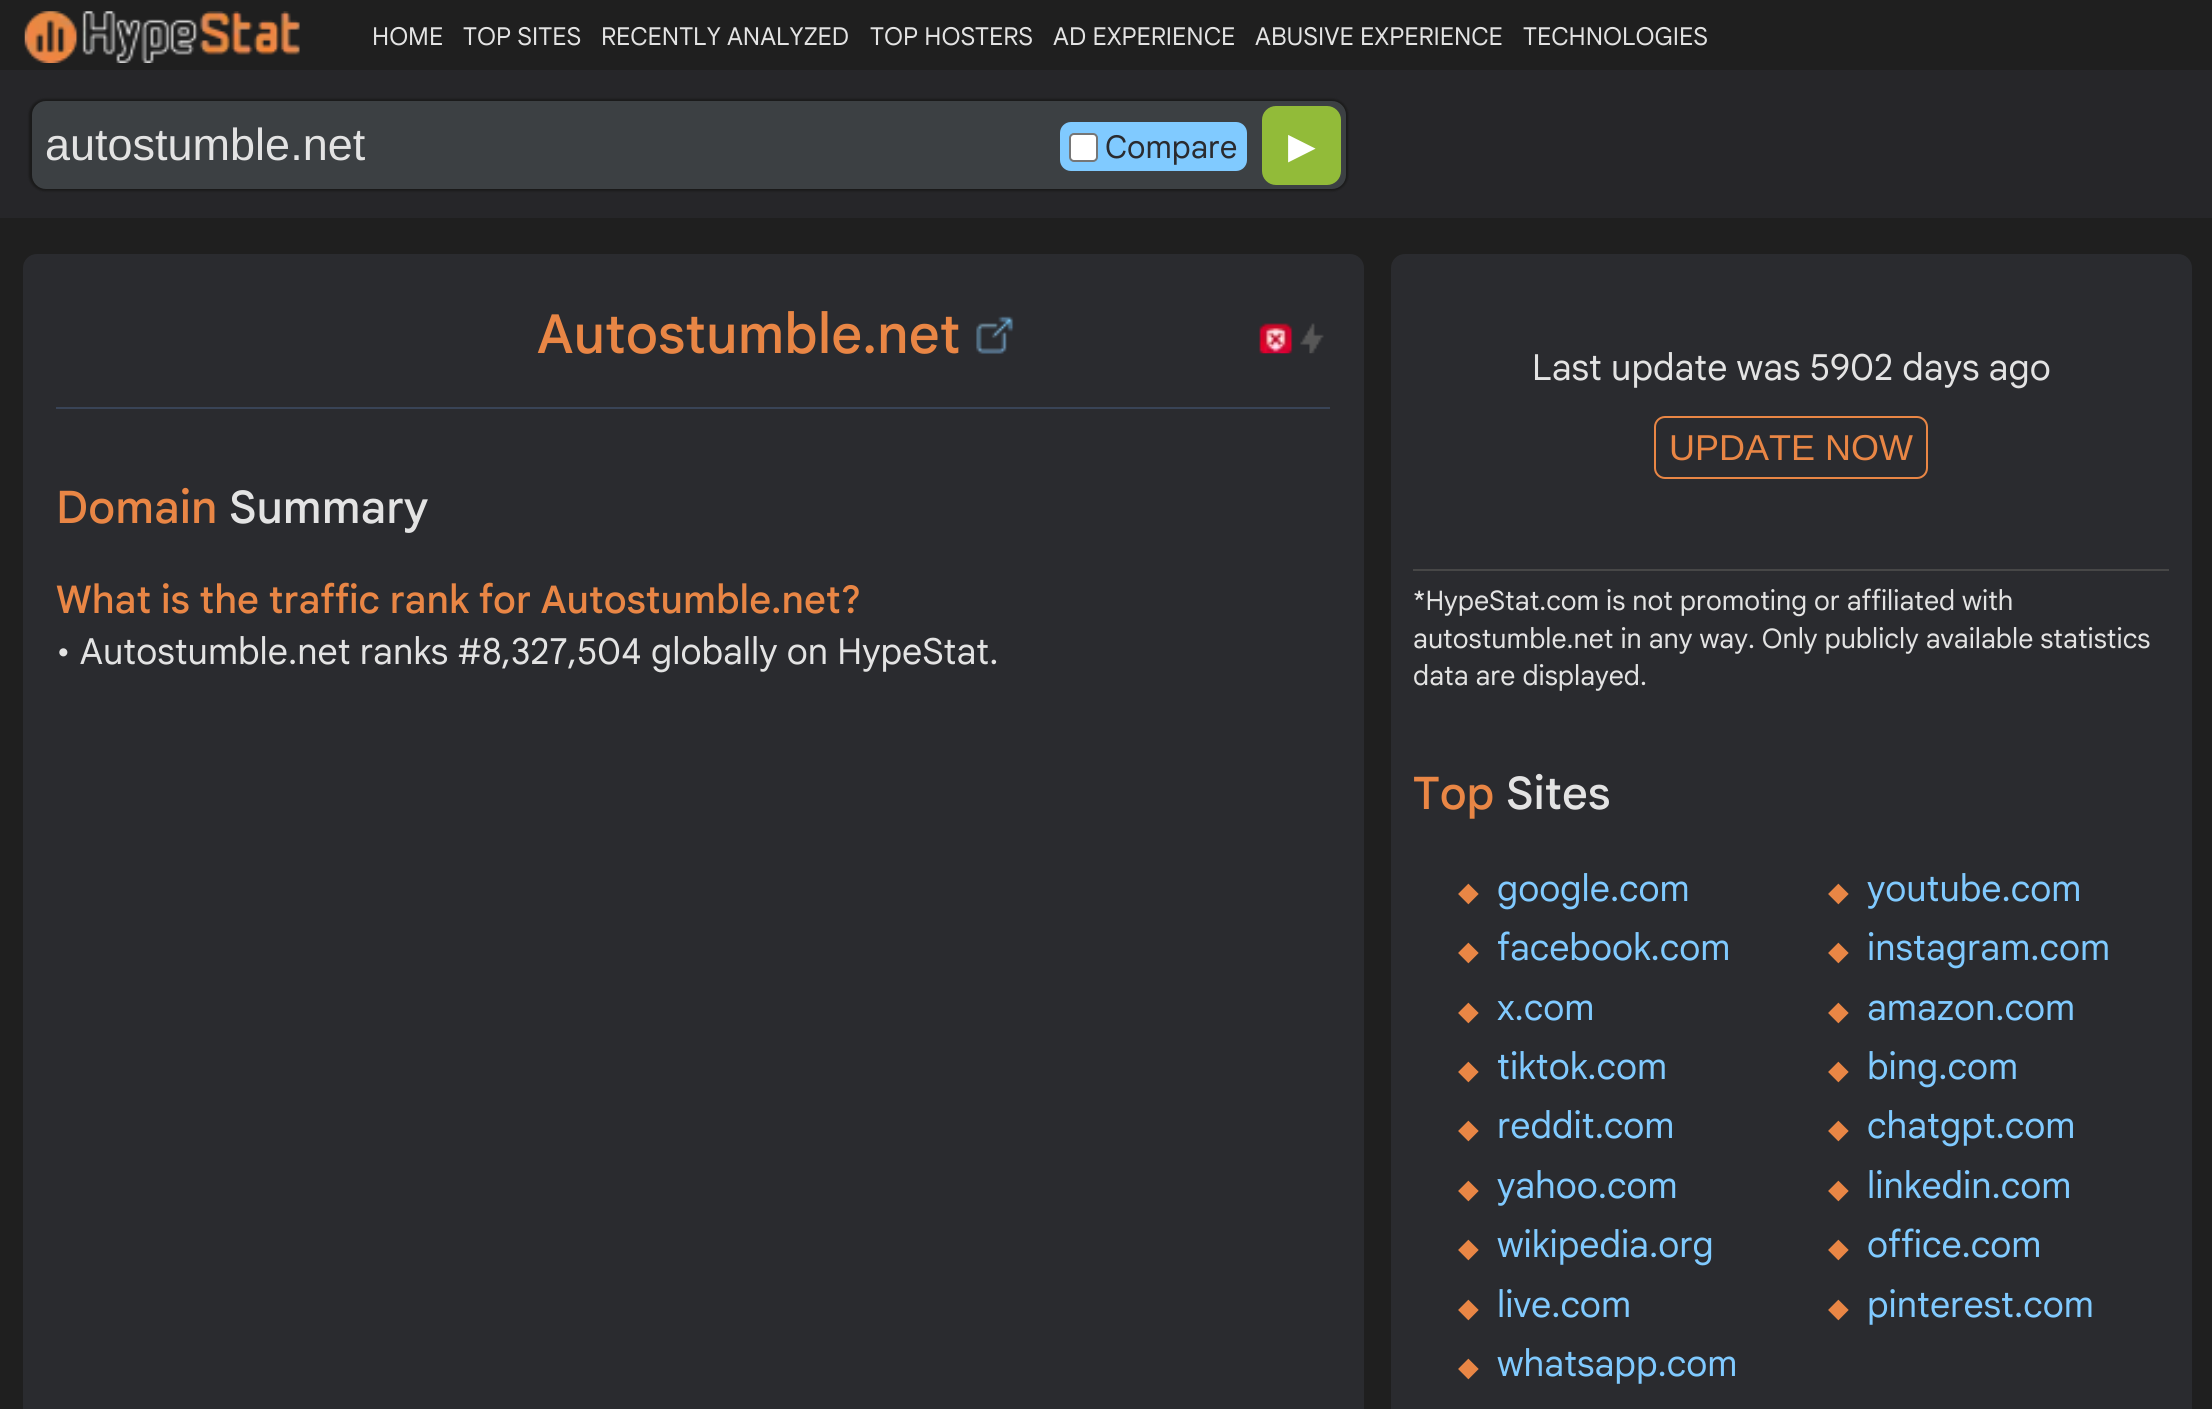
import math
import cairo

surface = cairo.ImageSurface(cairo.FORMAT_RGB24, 2212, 1409)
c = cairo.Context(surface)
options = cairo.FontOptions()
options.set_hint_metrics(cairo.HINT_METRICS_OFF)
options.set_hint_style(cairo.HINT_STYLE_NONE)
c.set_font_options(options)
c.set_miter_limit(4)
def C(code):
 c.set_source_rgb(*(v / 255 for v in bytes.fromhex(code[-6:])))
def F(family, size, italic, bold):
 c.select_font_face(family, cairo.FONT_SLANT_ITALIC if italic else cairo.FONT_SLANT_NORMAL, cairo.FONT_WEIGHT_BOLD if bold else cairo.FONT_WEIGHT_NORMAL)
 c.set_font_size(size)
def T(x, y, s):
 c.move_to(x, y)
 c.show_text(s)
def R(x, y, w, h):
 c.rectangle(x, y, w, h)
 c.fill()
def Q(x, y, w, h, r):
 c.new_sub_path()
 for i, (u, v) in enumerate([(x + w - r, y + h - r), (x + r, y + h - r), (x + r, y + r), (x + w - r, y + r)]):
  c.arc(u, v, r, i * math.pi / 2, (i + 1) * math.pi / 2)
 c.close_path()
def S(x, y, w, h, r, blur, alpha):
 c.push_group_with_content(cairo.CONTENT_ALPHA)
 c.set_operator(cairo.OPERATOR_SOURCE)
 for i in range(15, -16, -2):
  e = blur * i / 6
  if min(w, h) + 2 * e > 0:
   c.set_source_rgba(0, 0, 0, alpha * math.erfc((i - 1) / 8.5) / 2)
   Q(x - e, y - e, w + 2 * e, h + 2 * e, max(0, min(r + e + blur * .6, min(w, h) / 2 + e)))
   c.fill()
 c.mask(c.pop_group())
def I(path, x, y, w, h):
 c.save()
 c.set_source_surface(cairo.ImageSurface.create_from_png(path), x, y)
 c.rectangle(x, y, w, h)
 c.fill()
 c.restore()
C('1f1f1f')
c.paint()
I('1.png',24,11,276,52)
F('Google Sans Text',24.75,0,0)
C('e3e3e3')
T(372,45,'HOME')
T(463,45,'TOP SITES')
T(601,45,'RECENTLY ANALYZED')
T(870,45,'TOP HOSTERS')
T(1053,45,'AD EXPERIENCE')
T(1255,45,'ABUSIVE EXPERIENCE')
T(1523,45,'TECHNOLOGIES')
C('262629')
R(0,70,2212,148)
C('1a1a1a')
S(29,99,1319,92,16,1,1)
C('3c4043')
Q(32,101,1314,88,14)
c.fill()
F('Liberation Sans',45,0,0)
C('e3e3e3')
T(45,160,'autostumble.net')
C('80caff')
Q(1060,122,187,49,11)
c.fill()
C('ffffff')
Q(1070,134,27,27,4)
c.fill_preserve()
C('767676')
c.stroke()
F('Google Sans Text',31.5,0,0)
C('2a2b2f')
T(1105,158,'Compare')
C('92bb39')
Q(1262,106,79,79,14)
c.fill()
F('DejaVu Sans',36,0,0)
C('ffffff')
T(1288,158,'▶')
C('2a2b2f')
Q(23,254,1341,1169,14)
c.fill()
F('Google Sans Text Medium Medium',54,0,0)
C('e98645')
T(537,353,'Autostumble.net')
I('2.png',976,316,38,38)
I('3.png',1259,323,34,31)
I('4.png',1300,323,24,31)
C('394457')
R(56,407,1274,2)
F('Google Sans Text Medium Medium',45,0,0)
C('e98645')
T(56,523,'Domain')
C('e3e3e3')
T(229,523,'Summary')
F('Google Sans Text Medium Medium',38.25,0,0)
C('e98645')
T(56,613,'What is the traffic rank for Autostumble.net?')
F('Google Sans Text',36,0,0)
C('e3e3e3')
T(56,664,'• Autostumble.net ranks #8,327,504 globally on HypeStat.')
C('2a2b2f')
Q(1391,254,801,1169,14)
c.fill()
C('474747')
R(1413,569,756,2)
C('e3e3e3')
T(1532,380,'Last update was 5902 days ago')
Q(1655,417,272,61,10)
C('e98645')
c.stroke()
F('Liberation Sans',36,0,0)
T(1669,460,'UPDATE NOW')
F('Google Sans Text',27,0,0)
C('e3e3e3')
T(1413,610,'*HypeStat.com is not promoting or affiliated with')
T(1413,648,'autostumble.net in any way. Only publicly available statistics')
T(1413,685,'data are displayed.')
F('Google Sans Text Medium Medium',45,0,0)
C('e98645')
T(1413,809,'Top')
C('e3e3e3')
T(1506,809,'Sites')
F('DejaVu Sans',27,0,0)
C('e98645')
T(1458,901,'◆')
F('Google Sans Text',36,0,0)
C('80caff')
T(1497,901,'google.com')
F('DejaVu Sans',27,0,0)
C('e98645')
T(1828,901,'◆')
F('Google Sans Text',36,0,0)
C('80caff')
T(1867,901,'youtube.com')
F('DejaVu Sans',27,0,0)
C('e98645')
T(1458,960,'◆')
F('Google Sans Text',36,0,0)
C('80caff')
T(1497,960,'facebook.com')
F('DejaVu Sans',27,0,0)
C('e98645')
T(1828,960,'◆')
F('Google Sans Text',36,0,0)
C('80caff')
T(1867,960,'instagram.com')
F('DejaVu Sans',27,0,0)
C('e98645')
T(1458,1020,'◆')
F('Google Sans Text',36,0,0)
C('80caff')
T(1497,1020,'x.com')
F('DejaVu Sans',27,0,0)
C('e98645')
T(1828,1020,'◆')
F('Google Sans Text',36,0,0)
C('80caff')
T(1867,1020,'amazon.com')
F('DejaVu Sans',27,0,0)
C('e98645')
T(1458,1079,'◆')
F('Google Sans Text',36,0,0)
C('80caff')
T(1497,1079,'tiktok.com')
F('DejaVu Sans',27,0,0)
C('e98645')
T(1828,1079,'◆')
F('Google Sans Text',36,0,0)
C('80caff')
T(1867,1079,'bing.com')
F('DejaVu Sans',27,0,0)
C('e98645')
T(1458,1138,'◆')
F('Google Sans Text',36,0,0)
C('80caff')
T(1497,1138,'reddit.com')
F('DejaVu Sans',27,0,0)
C('e98645')
T(1828,1138,'◆')
F('Google Sans Text',36,0,0)
C('80caff')
T(1867,1138,'chatgpt.com')
F('DejaVu Sans',27,0,0)
C('e98645')
T(1458,1198,'◆')
F('Google Sans Text',36,0,0)
C('80caff')
T(1497,1198,'yahoo.com')
F('DejaVu Sans',27,0,0)
C('e98645')
T(1828,1198,'◆')
F('Google Sans Text',36,0,0)
C('80caff')
T(1867,1198,'linkedin.com')
F('DejaVu Sans',27,0,0)
C('e98645')
T(1458,1257,'◆')
F('Google Sans Text',36,0,0)
C('80caff')
T(1497,1257,'wikipedia.org')
F('DejaVu Sans',27,0,0)
C('e98645')
T(1828,1257,'◆')
F('Google Sans Text',36,0,0)
C('80caff')
T(1867,1257,'office.com')
F('DejaVu Sans',27,0,0)
C('e98645')
T(1458,1317,'◆')
F('Google Sans Text',36,0,0)
C('80caff')
T(1497,1317,'live.com')
F('DejaVu Sans',27,0,0)
C('e98645')
T(1828,1317,'◆')
F('Google Sans Text',36,0,0)
C('80caff')
T(1867,1317,'pinterest.com')
F('DejaVu Sans',27,0,0)
C('e98645')
T(1458,1376,'◆')
F('Google Sans Text',36,0,0)
C('80caff')
T(1497,1376,'whatsapp.com')
surface.write_to_png('o.png')
